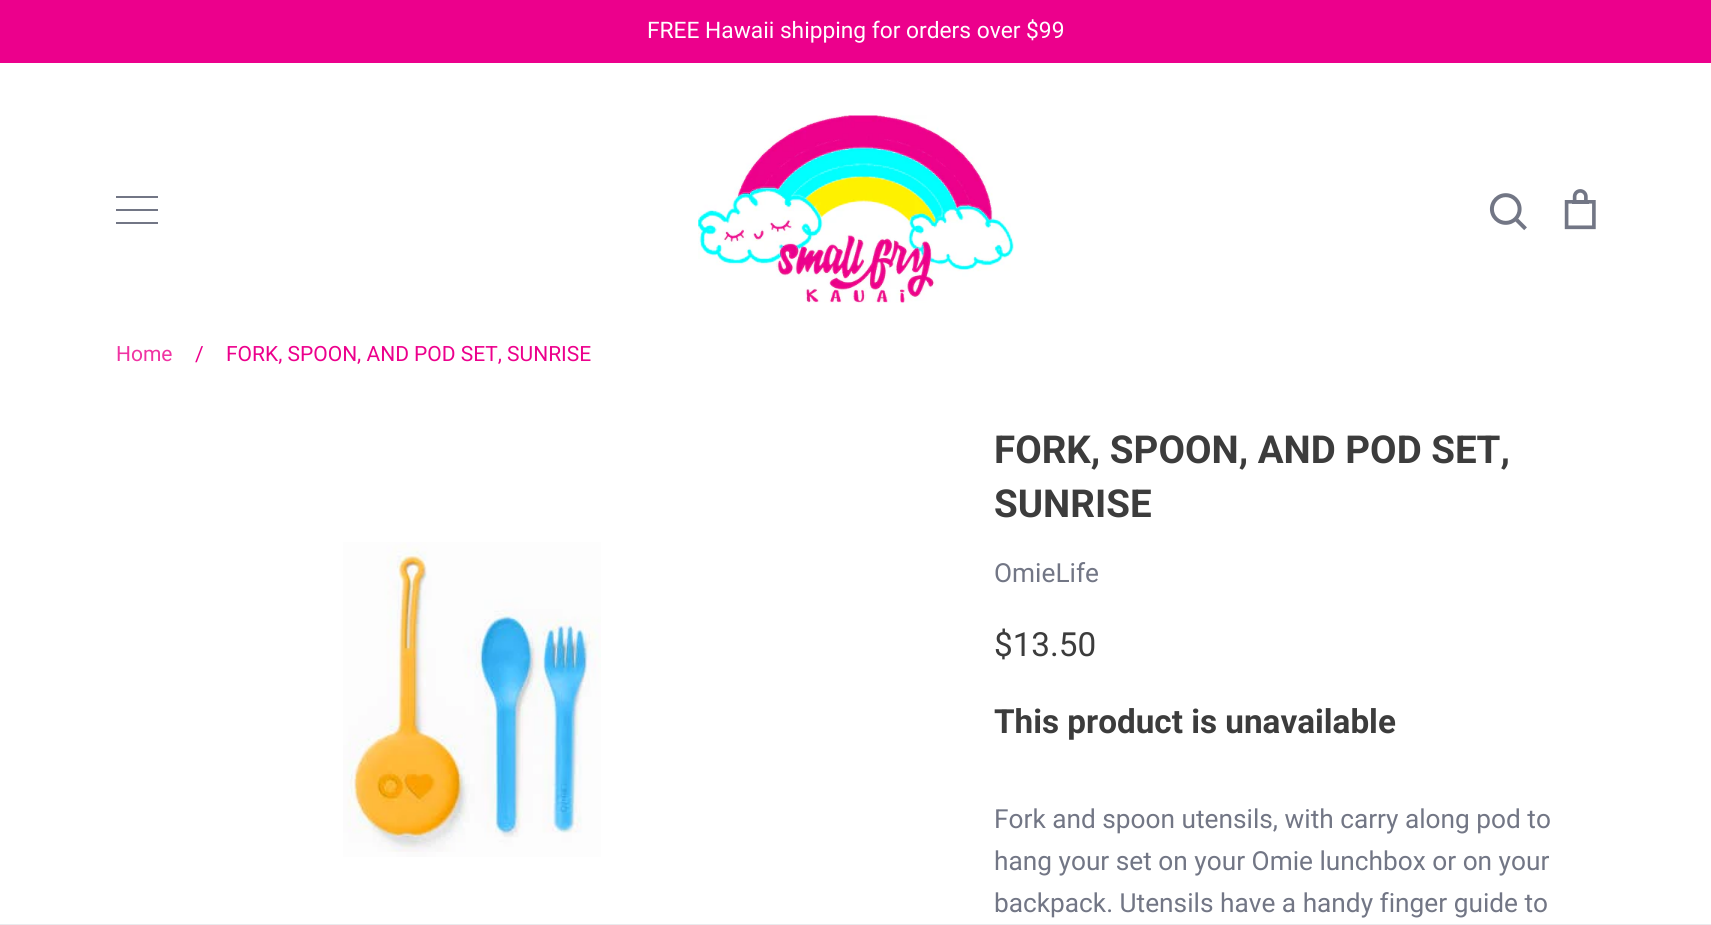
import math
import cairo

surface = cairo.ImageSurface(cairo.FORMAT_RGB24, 1711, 925)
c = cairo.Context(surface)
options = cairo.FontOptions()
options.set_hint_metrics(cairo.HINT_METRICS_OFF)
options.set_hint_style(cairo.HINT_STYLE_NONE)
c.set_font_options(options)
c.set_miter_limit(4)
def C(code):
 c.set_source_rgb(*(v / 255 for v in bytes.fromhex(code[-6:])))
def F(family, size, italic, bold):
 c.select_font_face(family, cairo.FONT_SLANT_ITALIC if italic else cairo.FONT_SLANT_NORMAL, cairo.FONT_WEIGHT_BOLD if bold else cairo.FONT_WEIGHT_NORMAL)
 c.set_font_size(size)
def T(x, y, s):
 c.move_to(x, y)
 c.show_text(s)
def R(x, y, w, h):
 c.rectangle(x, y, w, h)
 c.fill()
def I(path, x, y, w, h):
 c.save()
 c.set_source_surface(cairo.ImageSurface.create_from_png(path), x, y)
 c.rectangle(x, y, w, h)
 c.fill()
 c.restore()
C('ffffff')
c.paint()
C('ec008c')
R(0,0,1711,63)
F('Roboto',22.75,0,0)
C('ffffff')
T(647,38,'FREE Hawaii shipping for orders over $99')
C('727685')
R(116,196,42,2)
R(116,209,42,2)
R(116,222,42,2)
I('1.png',698,115,316,188)
I('2.png',1489,193,38,38)
I('3.png',1564,189,32,41)
C('eaeaed')
R(0,924,1711,1)
F('Roboto',21,0,0)
C('f033a3')
T(116,361,'Home')
C('ec008c')
T(195,361,'/')
T(226,361,'FORK, SPOON, AND POD SET, SUNRISE')
I('4.png',343,542,258,315)
F('Roboto',38.5,0,1)
C('3c3c3c')
T(994,463,'FORK, SPOON, AND POD SET,')
T(994,517,'SUNRISE')
F('Roboto',26.25,0,0)
C('727685')
T(994,582,'OmieLife')
F('Roboto',33.25,0,0)
C('3c3c3c')
T(994,656,'$13.50')
F('Roboto',33.25,0,1)
T(994,733,'This product is unavailable')
F('Roboto',26.25,0,0)
C('727685')
T(994,828,'Fork and spoon utensils, with carry along pod to')
T(994,870,'hang your set on your Omie lunchbox or on your')
T(994,912,'backpack. Utensils have a handy finger guide to')
surface.write_to_png('o.png')
